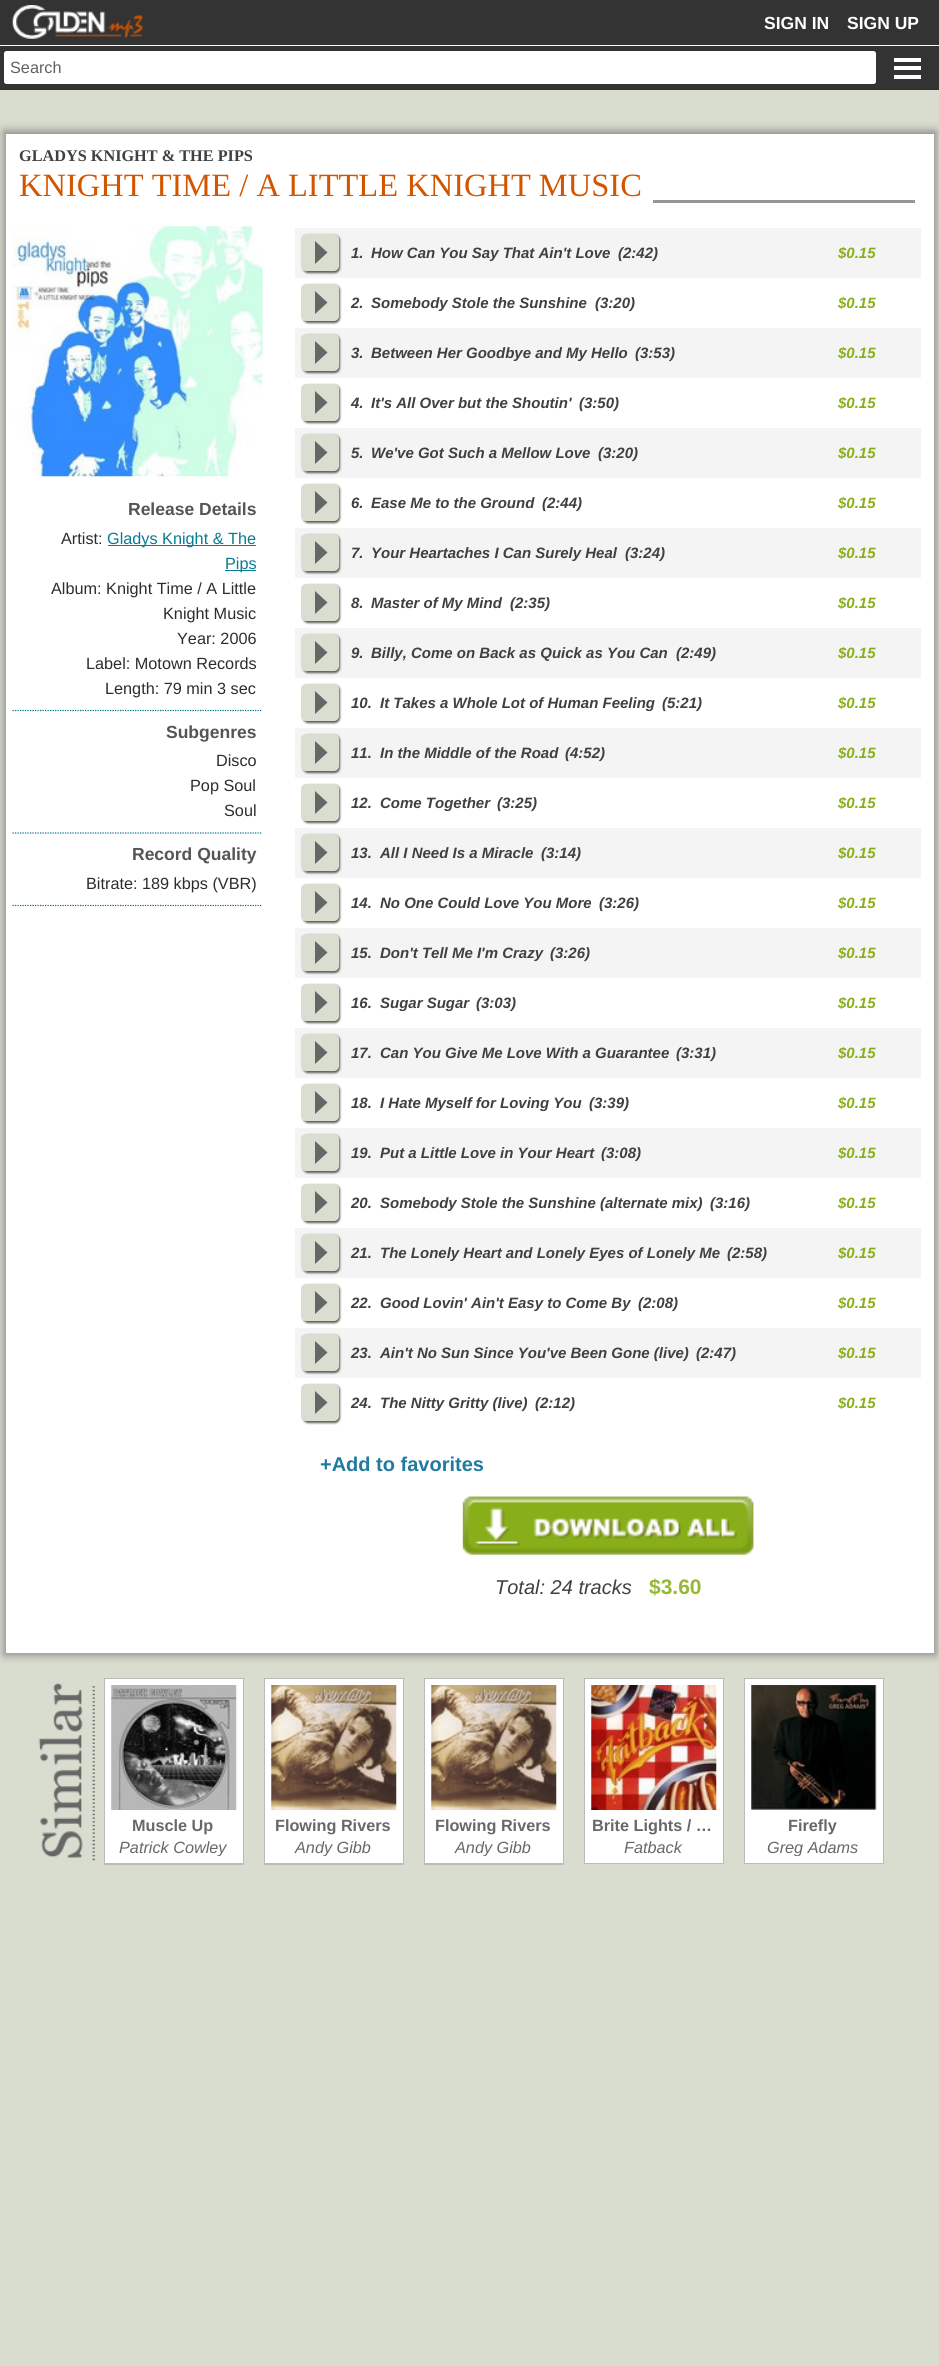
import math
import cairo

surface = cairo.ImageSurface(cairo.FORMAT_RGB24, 939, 2366)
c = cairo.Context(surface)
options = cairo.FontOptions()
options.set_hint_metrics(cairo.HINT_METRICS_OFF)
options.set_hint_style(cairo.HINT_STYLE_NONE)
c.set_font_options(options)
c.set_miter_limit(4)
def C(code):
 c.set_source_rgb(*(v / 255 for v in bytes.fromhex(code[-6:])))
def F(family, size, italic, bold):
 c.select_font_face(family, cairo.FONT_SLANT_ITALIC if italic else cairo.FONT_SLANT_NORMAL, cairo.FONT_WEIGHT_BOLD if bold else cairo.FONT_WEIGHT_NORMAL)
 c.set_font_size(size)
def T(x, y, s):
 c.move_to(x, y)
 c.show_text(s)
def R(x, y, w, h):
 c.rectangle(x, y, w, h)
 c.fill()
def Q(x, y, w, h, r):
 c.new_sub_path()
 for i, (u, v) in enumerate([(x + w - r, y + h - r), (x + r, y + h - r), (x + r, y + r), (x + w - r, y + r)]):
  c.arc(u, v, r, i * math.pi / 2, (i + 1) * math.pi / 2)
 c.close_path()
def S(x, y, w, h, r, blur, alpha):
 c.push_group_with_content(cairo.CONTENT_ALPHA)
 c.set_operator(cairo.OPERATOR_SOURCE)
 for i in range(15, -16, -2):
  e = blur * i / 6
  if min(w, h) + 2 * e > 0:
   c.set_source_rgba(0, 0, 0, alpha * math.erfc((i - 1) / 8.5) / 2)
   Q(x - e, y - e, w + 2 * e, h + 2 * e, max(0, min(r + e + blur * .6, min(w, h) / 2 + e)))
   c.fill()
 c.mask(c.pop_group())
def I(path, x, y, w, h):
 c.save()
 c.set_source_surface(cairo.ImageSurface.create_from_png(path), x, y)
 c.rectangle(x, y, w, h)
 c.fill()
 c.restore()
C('d9ddcf')
c.paint()
C('333333')
R(0,0,939,90)
I('1.png',12,5,131,34)
F('Liberation Sans',17.5,0,1)
C('ffffff')
T(764,29,'SIGN IN')
T(847,29,'SIGN UP')
Q(4,51,872,33,2.5)
c.fill()
F('Liberation Sans',16.25,0,0)
C('626161')
T(10,73,'Search')
C('ffffff')
R(0,45,939,1)
R(894,58,27,4)
R(894,75,27,4)
R(894,66,27,4)
C('888888')
S(4,131,932,1524,0,4.5,1)
C('ffffff')
R(6,134,928,1519)
F('Liberation Serif',16.25,0,1)
C('413f3f')
T(19,161,'GLADYS KNIGHT & THE PIPS')
F('Liberation Serif',32.5,0,0)
C('d45500')
T(19,196,'KNIGHT TIME / A LITTLE KNIGHT MUSIC')
C('969696')
R(653,200,262,3)
I('2.png',12,226,251,251)
c.new_path()
c.move_to(12.5,710.5)
c.line_to(262.5,710.5)
C('006b88')
c.set_line_width(1.2)
c.set_dash([1.25,1.25])
c.stroke()
F('Liberation Sans',17.5,0,1)
C('555555')
T(128,515,'Release Details')
F('Liberation Sans',16.25,0,0)
C('2d2d2d')
T(61,544,'Artist:')
C('077b95')
R(108,545,148,1)
T(107,544,'Gladys Knight & The')
R(225,570,31,1)
T(225,569,'Pips')
C('2d2d2d')
T(51,594,'Album: Knight Time / A Little')
T(163,619,'Knight Music')
T(177,644,'Year: 2006')
T(86,669,'Label: Motown Records')
T(105,694,'Length: 79 min 3 sec')
c.new_path()
c.move_to(12.5,833)
c.line_to(262.5,833)
C('006b88')
c.stroke()
F('Liberation Sans',17.5,0,1)
C('555555')
T(166,738,'Subgenres')
F('Liberation Sans',16.25,0,0)
C('2d2d2d')
T(216,766,'Disco')
T(190,791,'Pop Soul')
T(224,816,'Soul')
c.new_path()
c.move_to(12.5,905.5)
c.line_to(262.5,905.5)
C('006b88')
c.stroke()
F('Liberation Sans',17.5,0,1)
C('555555')
T(132,860,'Record Quality')
F('Liberation Sans',16.25,0,0)
C('2d2d2d')
T(86,889,'Bitrate: 189 kbps (VBR)')
C('f4f4f4')
R(295,228,626,50)
C('5f615b')
S(303,235,37,38,5,1,1)
C('daded0')
Q(301,234,38,37,5)
c.fill()
C('666666')
c.new_path()
c.move_to(315,264)
c.line_to(315,241)
c.line_to(327.5,252.5)
c.close_path()
c.fill()
F('Liberation Sans',15,1,1)
C('413f3f')
T(351,258,'1.')
T(371,258,'How Can You Say That Ain\'t Love')
T(618,258,'(2:42)')
C('88af19')
T(838,258,'$0.15')
C('5f615b')
S(303,285,37,38,5,1,1)
C('daded0')
Q(301,284,38,37,5)
c.fill()
C('666666')
c.new_path()
c.move_to(315,314)
c.line_to(315,291)
c.line_to(327.5,302.5)
c.close_path()
c.fill()
C('413f3f')
T(351,308,'2.')
T(371,308,'Somebody Stole the Sunshine')
T(595,308,'(3:20)')
C('88af19')
T(838,308,'$0.15')
C('f4f4f4')
R(295,328,626,50)
C('5f615b')
S(303,335,37,38,5,1,1)
C('daded0')
Q(301,334,38,37,5)
c.fill()
C('666666')
c.new_path()
c.move_to(315,364)
c.line_to(315,341)
c.line_to(327.5,352.5)
c.close_path()
c.fill()
C('413f3f')
T(351,358,'3.')
T(371,358,'Between Her Goodbye and My Hello')
T(635,358,'(3:53)')
C('88af19')
T(838,358,'$0.15')
C('5f615b')
S(303,385,37,38,5,1,1)
C('daded0')
Q(301,384,38,37,5)
c.fill()
C('666666')
c.new_path()
c.move_to(315,414)
c.line_to(315,391)
c.line_to(327.5,402.5)
c.close_path()
c.fill()
C('413f3f')
T(351,408,'4.')
T(371,408,'It\'s All Over but the Shoutin\'')
T(579,408,'(3:50)')
C('88af19')
T(838,408,'$0.15')
C('f4f4f4')
R(295,428,626,50)
C('5f615b')
S(303,435,37,38,5,1,1)
C('daded0')
Q(301,434,38,37,5)
c.fill()
C('666666')
c.new_path()
c.move_to(315,464)
c.line_to(315,441)
c.line_to(327.5,452.5)
c.close_path()
c.fill()
C('413f3f')
T(351,458,'5.')
T(371,458,'We\'ve Got Such a Mellow Love')
T(598,458,'(3:20)')
C('88af19')
T(838,458,'$0.15')
C('5f615b')
S(303,485,37,38,5,1,1)
C('daded0')
Q(301,484,38,37,5)
c.fill()
C('666666')
c.new_path()
c.move_to(315,514)
c.line_to(315,491)
c.line_to(327.5,502.5)
c.close_path()
c.fill()
C('413f3f')
T(351,508,'6.')
T(371,508,'Ease Me to the Ground')
T(542,508,'(2:44)')
C('88af19')
T(838,508,'$0.15')
C('f4f4f4')
R(295,528,626,50)
C('5f615b')
S(303,535,37,38,5,1,1)
C('daded0')
Q(301,534,38,37,5)
c.fill()
C('666666')
c.new_path()
c.move_to(315,564)
c.line_to(315,541)
c.line_to(327.5,552.5)
c.close_path()
c.fill()
C('413f3f')
T(351,558,'7.')
T(371,558,'Your Heartaches I Can Surely Heal')
T(625,558,'(3:24)')
C('88af19')
T(838,558,'$0.15')
C('5f615b')
S(303,585,37,38,5,1,1)
C('daded0')
Q(301,584,38,37,5)
c.fill()
C('666666')
c.new_path()
c.move_to(315,614)
c.line_to(315,591)
c.line_to(327.5,602.5)
c.close_path()
c.fill()
C('413f3f')
T(351,608,'8.')
T(371,608,'Master of My Mind')
T(510,608,'(2:35)')
C('88af19')
T(838,608,'$0.15')
C('f4f4f4')
R(295,628,626,50)
C('5f615b')
S(303,635,37,38,5,1,1)
C('daded0')
Q(301,634,38,37,5)
c.fill()
C('666666')
c.new_path()
c.move_to(315,664)
c.line_to(315,641)
c.line_to(327.5,652.5)
c.close_path()
c.fill()
C('413f3f')
T(351,658,'9.')
T(371,658,'Billy, Come on Back as Quick as You Can')
T(676,658,'(2:49)')
C('88af19')
T(838,658,'$0.15')
C('5f615b')
S(303,685,37,38,5,1,1)
C('daded0')
Q(301,684,38,37,5)
c.fill()
C('666666')
c.new_path()
c.move_to(315,714)
c.line_to(315,691)
c.line_to(327.5,702.5)
c.close_path()
c.fill()
C('413f3f')
T(351,708,'10.')
T(380,708,'It Takes a Whole Lot of Human Feeling')
T(662,708,'(5:21)')
C('88af19')
T(838,708,'$0.15')
C('f4f4f4')
R(295,728,626,50)
C('5f615b')
S(303,735,37,38,5,1,1)
C('daded0')
Q(301,734,38,37,5)
c.fill()
C('666666')
c.new_path()
c.move_to(315,764)
c.line_to(315,741)
c.line_to(327.5,752.5)
c.close_path()
c.fill()
C('413f3f')
T(351,758,'11.')
T(380,758,'In the Middle of the Road')
T(565,758,'(4:52)')
C('88af19')
T(838,758,'$0.15')
C('5f615b')
S(303,785,37,38,5,1,1)
C('daded0')
Q(301,784,38,37,5)
c.fill()
C('666666')
c.new_path()
c.move_to(315,814)
c.line_to(315,791)
c.line_to(327.5,802.5)
c.close_path()
c.fill()
C('413f3f')
T(351,808,'12.')
T(380,808,'Come Together')
T(497,808,'(3:25)')
C('88af19')
T(838,808,'$0.15')
C('f4f4f4')
R(295,828,626,50)
C('5f615b')
S(303,835,37,38,5,1,1)
C('daded0')
Q(301,834,38,37,5)
c.fill()
C('666666')
c.new_path()
c.move_to(315,864)
c.line_to(315,841)
c.line_to(327.5,852.5)
c.close_path()
c.fill()
C('413f3f')
T(351,858,'13.')
T(380,858,'All I Need Is a Miracle')
T(541,858,'(3:14)')
C('88af19')
T(838,858,'$0.15')
C('5f615b')
S(303,885,37,38,5,1,1)
C('daded0')
Q(301,884,38,37,5)
c.fill()
C('666666')
c.new_path()
c.move_to(315,914)
c.line_to(315,891)
c.line_to(327.5,902.5)
c.close_path()
c.fill()
C('413f3f')
T(351,908,'14.')
T(380,908,'No One Could Love You More')
T(599,908,'(3:26)')
C('88af19')
T(838,908,'$0.15')
C('f4f4f4')
R(295,928,626,50)
C('5f615b')
S(303,935,37,38,5,1,1)
C('daded0')
Q(301,934,38,37,5)
c.fill()
C('666666')
c.new_path()
c.move_to(315,964)
c.line_to(315,941)
c.line_to(327.5,952.5)
c.close_path()
c.fill()
C('413f3f')
T(351,958,'15.')
T(380,958,'Don\'t Tell Me I\'m Crazy')
T(550,958,'(3:26)')
C('88af19')
T(838,958,'$0.15')
C('5f615b')
S(303,985,37,38,5,1,1)
C('daded0')
Q(301,984,38,37,5)
c.fill()
C('666666')
c.new_path()
c.move_to(315,1014)
c.line_to(315,991)
c.line_to(327.5,1002.5)
c.close_path()
c.fill()
C('413f3f')
T(351,1008,'16.')
T(380,1008,'Sugar Sugar')
T(476,1008,'(3:03)')
C('88af19')
T(838,1008,'$0.15')
C('f4f4f4')
R(295,1028,626,50)
C('5f615b')
S(303,1035,37,38,5,1,1)
C('daded0')
Q(301,1034,38,37,5)
c.fill()
C('666666')
c.new_path()
c.move_to(315,1064)
c.line_to(315,1041)
c.line_to(327.5,1052.5)
c.close_path()
c.fill()
C('413f3f')
T(351,1058,'17.')
T(380,1058,'Can You Give Me Love With a Guarantee')
T(676,1058,'(3:31)')
C('88af19')
T(838,1058,'$0.15')
C('5f615b')
S(303,1085,37,38,5,1,1)
C('daded0')
Q(301,1084,38,37,5)
c.fill()
C('666666')
c.new_path()
c.move_to(315,1114)
c.line_to(315,1091)
c.line_to(327.5,1102.5)
c.close_path()
c.fill()
C('413f3f')
T(351,1108,'18.')
T(380,1108,'I Hate Myself for Loving You')
T(589,1108,'(3:39)')
C('88af19')
T(838,1108,'$0.15')
C('f4f4f4')
R(295,1128,626,50)
C('5f615b')
S(303,1135,37,38,5,1,1)
C('daded0')
Q(301,1134,38,37,5)
c.fill()
C('666666')
c.new_path()
c.move_to(315,1164)
c.line_to(315,1141)
c.line_to(327.5,1152.5)
c.close_path()
c.fill()
C('413f3f')
T(351,1158,'19.')
T(380,1158,'Put a Little Love in Your Heart')
T(601,1158,'(3:08)')
C('88af19')
T(838,1158,'$0.15')
C('5f615b')
S(303,1185,37,38,5,1,1)
C('daded0')
Q(301,1184,38,37,5)
c.fill()
C('666666')
c.new_path()
c.move_to(315,1214)
c.line_to(315,1191)
c.line_to(327.5,1202.5)
c.close_path()
c.fill()
C('413f3f')
T(351,1208,'20.')
T(380,1208,'Somebody Stole the Sunshine (alternate mix)')
T(710,1208,'(3:16)')
C('88af19')
T(838,1208,'$0.15')
C('f4f4f4')
R(295,1228,626,50)
C('5f615b')
S(303,1235,37,38,5,1,1)
C('daded0')
Q(301,1234,38,37,5)
c.fill()
C('666666')
c.new_path()
c.move_to(315,1264)
c.line_to(315,1241)
c.line_to(327.5,1252.5)
c.close_path()
c.fill()
C('413f3f')
T(351,1258,'21.')
T(380,1258,'The Lonely Heart and Lonely Eyes of Lonely Me')
T(727,1258,'(2:58)')
C('88af19')
T(838,1258,'$0.15')
C('5f615b')
S(303,1285,37,38,5,1,1)
C('daded0')
Q(301,1284,38,37,5)
c.fill()
C('666666')
c.new_path()
c.move_to(315,1314)
c.line_to(315,1291)
c.line_to(327.5,1302.5)
c.close_path()
c.fill()
C('413f3f')
T(351,1308,'22.')
T(380,1308,'Good Lovin\' Ain\'t Easy to Come By')
T(638,1308,'(2:08)')
C('88af19')
T(838,1308,'$0.15')
C('f4f4f4')
R(295,1328,626,50)
C('5f615b')
S(303,1335,37,38,5,1,1)
C('daded0')
Q(301,1334,38,37,5)
c.fill()
C('666666')
c.new_path()
c.move_to(315,1364)
c.line_to(315,1341)
c.line_to(327.5,1352.5)
c.close_path()
c.fill()
C('413f3f')
T(351,1358,'23.')
T(380,1358,'Ain\'t No Sun Since You\'ve Been Gone (live)')
T(696,1358,'(2:47)')
C('88af19')
T(838,1358,'$0.15')
C('5f615b')
S(303,1385,37,38,5,1,1)
C('daded0')
Q(301,1384,38,37,5)
c.fill()
C('666666')
c.new_path()
c.move_to(315,1414)
c.line_to(315,1391)
c.line_to(327.5,1402.5)
c.close_path()
c.fill()
C('413f3f')
T(351,1408,'24.')
T(380,1408,'The Nitty Gritty (live)')
T(535,1408,'(2:12)')
C('88af19')
T(838,1408,'$0.15')
F('Liberation Sans',20,0,1)
C('207b9f')
T(320,1471,'+Add to favorites')
I('3.png',462,1496,292,59)
F('Liberation Sans',20,1,0)
C('413f3f')
T(495,1594,'Total: 24 tracks')
F('Liberation Sans',21,0,1)
C('96b833')
T(649,1594,'$3.60')
I('4.png',38,1683,57,178)
C('ffffff')
c.rectangle(104.5,1678.5,139,185)
c.fill_preserve()
C('bebaba')
c.set_line_width(1)
c.set_dash([])
c.stroke()
I('5.png',111,1685,126,125)
F('Liberation Sans',16.25,0,1)
C('696767')
T(132,1831,'Muscle Up')
c.save()
c.rectangle(111,1835,123,21)
c.clip()
F('Liberation Sans',16.25,1,0)
T(119,1853,'Patrick Cowley')
c.restore()
C('ffffff')
c.rectangle(264.5,1678.5,139,185)
c.fill_preserve()
C('bebaba')
c.stroke()
I('6.png',271,1685,126,125)
C('696767')
T(275,1831,'Flowing Rivers')
c.save()
c.rectangle(271,1835,123,21)
c.clip()
F('Liberation Sans',16.25,1,0)
T(295,1853,'Andy Gibb')
c.restore()
C('ffffff')
c.rectangle(424.5,1678.5,139,185)
c.fill_preserve()
C('bebaba')
c.stroke()
I('6.png',431,1685,126,125)
C('696767')
T(435,1831,'Flowing Rivers')
c.save()
c.rectangle(431,1835,123,21)
c.clip()
F('Liberation Sans',16.25,1,0)
T(455,1853,'Andy Gibb')
c.restore()
C('ffffff')
c.rectangle(584.5,1678.5,139,185)
c.fill_preserve()
C('bebaba')
c.stroke()
I('7.png',591,1685,126,125)
C('696767')
T(592,1831,'Brite Lights / …')
F('Liberation Sans',16.25,1,0)
T(624,1853,'Fatback')
C('ffffff')
c.rectangle(744.5,1678.5,139,185)
c.fill_preserve()
C('bebaba')
c.stroke()
I('8.png',751,1685,126,125)
F('Liberation Sans',16.25,0,1)
C('696767')
T(788,1831,'Firefly')
c.save()
c.rectangle(751,1835,123,21)
c.clip()
F('Liberation Sans',16.25,1,0)
T(767,1853,'Greg Adams')
c.restore()
c.save()
c.rectangle(39,1678,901,187)
c.clip()
c.rectangle(104.5,1864.5,139,185)
C('bebaba')
c.stroke()
c.rectangle(264.5,1864.5,139,185)
c.stroke()
c.rectangle(424.5,1864.5,139,185)
c.stroke()
c.restore()
surface.write_to_png('o.png')
